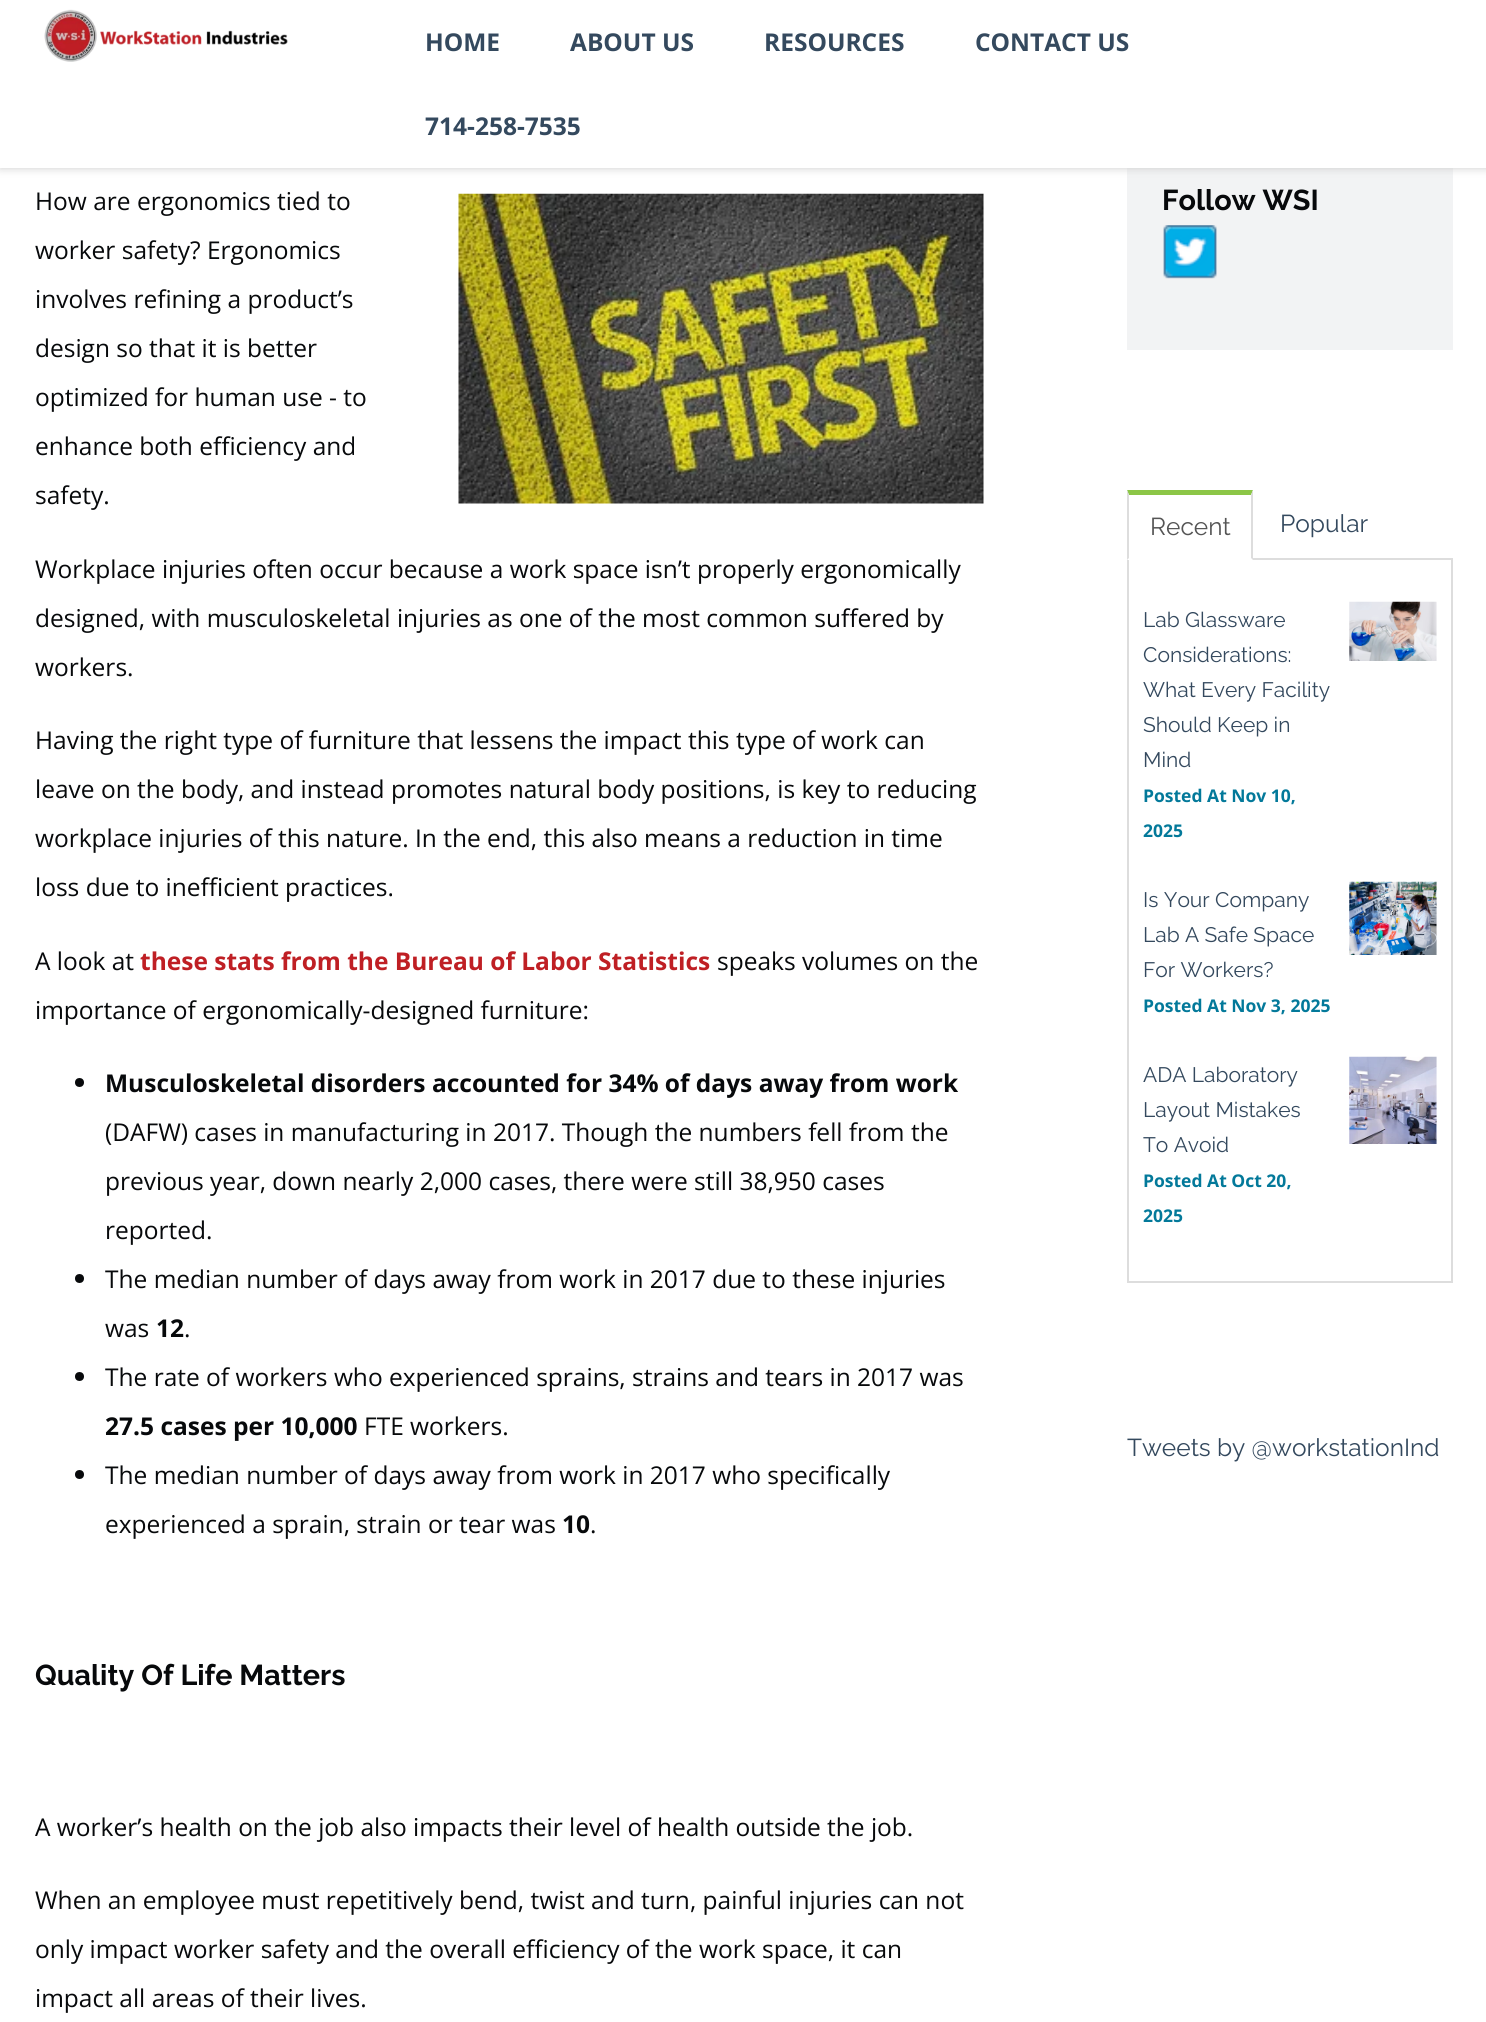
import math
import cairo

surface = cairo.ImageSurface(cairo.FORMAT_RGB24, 1486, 2022)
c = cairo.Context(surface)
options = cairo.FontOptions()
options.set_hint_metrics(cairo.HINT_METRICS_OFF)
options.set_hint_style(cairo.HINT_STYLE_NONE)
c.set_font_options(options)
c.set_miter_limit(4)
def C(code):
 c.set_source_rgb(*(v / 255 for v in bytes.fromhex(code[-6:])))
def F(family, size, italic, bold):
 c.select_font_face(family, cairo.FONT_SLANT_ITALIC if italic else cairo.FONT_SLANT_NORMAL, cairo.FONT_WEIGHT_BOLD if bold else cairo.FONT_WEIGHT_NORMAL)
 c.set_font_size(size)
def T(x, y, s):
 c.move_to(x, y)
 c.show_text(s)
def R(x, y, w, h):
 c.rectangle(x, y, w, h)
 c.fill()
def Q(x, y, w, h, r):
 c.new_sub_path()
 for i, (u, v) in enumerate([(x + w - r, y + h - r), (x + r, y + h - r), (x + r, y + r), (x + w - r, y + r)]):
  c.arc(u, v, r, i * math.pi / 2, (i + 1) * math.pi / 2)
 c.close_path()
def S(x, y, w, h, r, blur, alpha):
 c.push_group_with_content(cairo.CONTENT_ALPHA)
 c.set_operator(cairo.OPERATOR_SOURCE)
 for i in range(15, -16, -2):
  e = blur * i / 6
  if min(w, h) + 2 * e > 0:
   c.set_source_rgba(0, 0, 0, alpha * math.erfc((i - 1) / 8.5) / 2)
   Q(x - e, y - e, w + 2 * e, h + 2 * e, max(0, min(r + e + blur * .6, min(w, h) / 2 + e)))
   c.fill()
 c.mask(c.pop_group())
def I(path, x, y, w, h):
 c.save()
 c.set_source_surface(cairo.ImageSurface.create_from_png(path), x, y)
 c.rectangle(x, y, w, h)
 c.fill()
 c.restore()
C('ffffff')
c.paint()
C('f2f3f4')
R(1127,168,326,182)
C('cccccc')
S(0,0,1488,168,0,4.5,1)
C('ffffff')
R(0,0,1486,168)
I('1.png',44,9,244,53)
F('Open Sans',24.5,0,1)
C('34495e')
T(425,51,'HOME')
T(570,51,'ABOUT US')
T(764,51,'RESOURCES')
T(975,51,'CONTACT US')
T(425,135,'714-258-7535')
F('Open Sans',24.5,0,0)
C('07090b')
T(35,210,'How are ergonomics tied to')
I('2.png',458,193,526,311)
T(35,259,'worker safety? Ergonomics')
T(35,308,'involves refining a product’s')
T(35,357,'design so that it is better')
T(35,406,'optimized for human use - to')
T(35,455,'enhance both efficiency and')
T(35,504,'safety.')
T(35,578,'Workplace injuries often occur because a work space isn’t properly ergonomically')
T(35,627,'designed, with musculoskeletal injuries as one of the most common suffered by')
T(35,676,'workers.')
T(35,749,'Having the right type of furniture that lessens the impact this type of work can')
T(35,798,'leave on the body, and instead promotes natural body positions, is key to reducing')
T(35,847,'workplace injuries of this nature. In the end, this also means a reduction in time')
T(35,896,'loss due to inefficient practices.')
T(35,970,'A look at')
F('Open Sans',24.5,0,1)
C('bf1f24')
T(140,970,'these stats from the Bureau of Labor Statistics')
F('Open Sans',24.5,0,0)
C('07090b')
T(717,970,'speaks volumes on the')
T(35,1019,'importance of ergonomically-designed furniture:')
c.new_path()
c.arc(79.5,1082.5,4.5,0,2 * math.pi)
c.fill()
F('Open Sans',24.5,0,1)
T(105,1092,'Musculoskeletal disorders accounted for 34% of days away from work')
F('Open Sans',24.5,0,0)
T(105,1141,'(DAFW) cases in manufacturing in 2017. Though the numbers fell from the')
T(105,1190,'previous year, down nearly 2,000 cases, there were still 38,950 cases')
T(105,1239,'reported.')
c.new_path()
c.arc(79.5,1278.5,4.5,0,2 * math.pi)
c.fill()
T(105,1288,'The median number of days away from work in 2017 due to these injuries')
T(105,1337,'was')
F('Open Sans',24.5,0,1)
T(156,1337,'12')
F('Open Sans',24.5,0,0)
T(184,1337,'.')
c.new_path()
c.arc(79.5,1376.5,4.5,0,2 * math.pi)
c.fill()
T(105,1386,'The rate of workers who experienced sprains, strains and tears in 2017 was')
F('Open Sans',24.5,0,1)
T(105,1435,'27.5 cases per 10,000')
F('Open Sans',24.5,0,0)
T(364,1435,'FTE workers.')
c.new_path()
c.arc(79.5,1474.5,4.5,0,2 * math.pi)
c.fill()
T(105,1484,'The median number of days away from work in 2017 who specifically')
T(105,1533,'experienced a sprain, strain or tear was')
F('Open Sans',24.5,0,1)
T(562,1533,'10')
F('Open Sans',24.5,0,0)
T(590,1533,'.')
F('Raleway',28.75,0,1)
T(35,1685,'Quality Of Life Matters')
F('Open Sans',24.5,0,0)
T(35,1836,'A worker’s health on the job also impacts their level of health outside the job.')
T(35,1909,'When an employee must repetitively bend, twist and turn, painful injuries can not')
T(35,1958,'only impact worker safety and the overall efficiency of the work space, it can')
T(35,2007,'impact all areas of their lives.')
F('Raleway',28.75,0,1)
T(1162,210,'Follow WSI')
I('3.png',1163,225,54,54)
c.rectangle(1128,559,324,723)
C('dddddd')
c.stroke()
C('ffffff')
R(1127,558,126,2)
C('8cc647')
c.new_path()
c.move_to(1127,490)
c.line_to(1253,490)
c.line_to(1251,495)
c.line_to(1129,495)
c.close_path()
c.fill()
C('dddddd')
c.new_path()
c.move_to(1253,490)
c.line_to(1253,560)
c.line_to(1251,558)
c.line_to(1251,495)
c.close_path()
c.fill()
c.new_path()
c.move_to(1127,560)
c.line_to(1127,490)
c.line_to(1129,495)
c.line_to(1129,558)
c.close_path()
c.fill()
F('Raleway',24.5,0,0)
C('555555')
T(1150,535,'Recent')
C('34495e')
T(1280,532,'Popular')
F('Raleway',21,0,0)
T(1143,627,'Lab Glassware')
T(1143,662,'Considerations:')
T(1143,697,'What Every Facility')
T(1143,732,'Should Keep in')
T(1143,767,'Mind')
F('Open Sans',17.5,0,1)
C('03799a')
T(1143,802,'Posted At Nov 10,')
T(1143,837,'2025')
I('4.png',1349,601,88,60)
F('Raleway',21,0,0)
C('34495e')
T(1143,907,'Is Your Company')
T(1143,942,'Lab A Safe Space')
T(1143,977,'For Workers?')
F('Open Sans',17.5,0,1)
C('03799a')
T(1143,1012,'Posted At Nov 3, 2025')
I('5.png',1349,881,88,74)
F('Raleway',21,0,0)
C('34495e')
T(1143,1082,'ADA Laboratory')
T(1143,1117,'Layout Mistakes')
T(1143,1152,'To Avoid')
F('Open Sans',17.5,0,1)
C('03799a')
T(1143,1187,'Posted At Oct 20,')
T(1143,1222,'2025')
I('6.png',1349,1056,88,88)
F('Raleway',24.5,0,0)
C('34495e')
T(1127,1456,'Tweets by @workstationInd')
surface.write_to_png('o.png')
